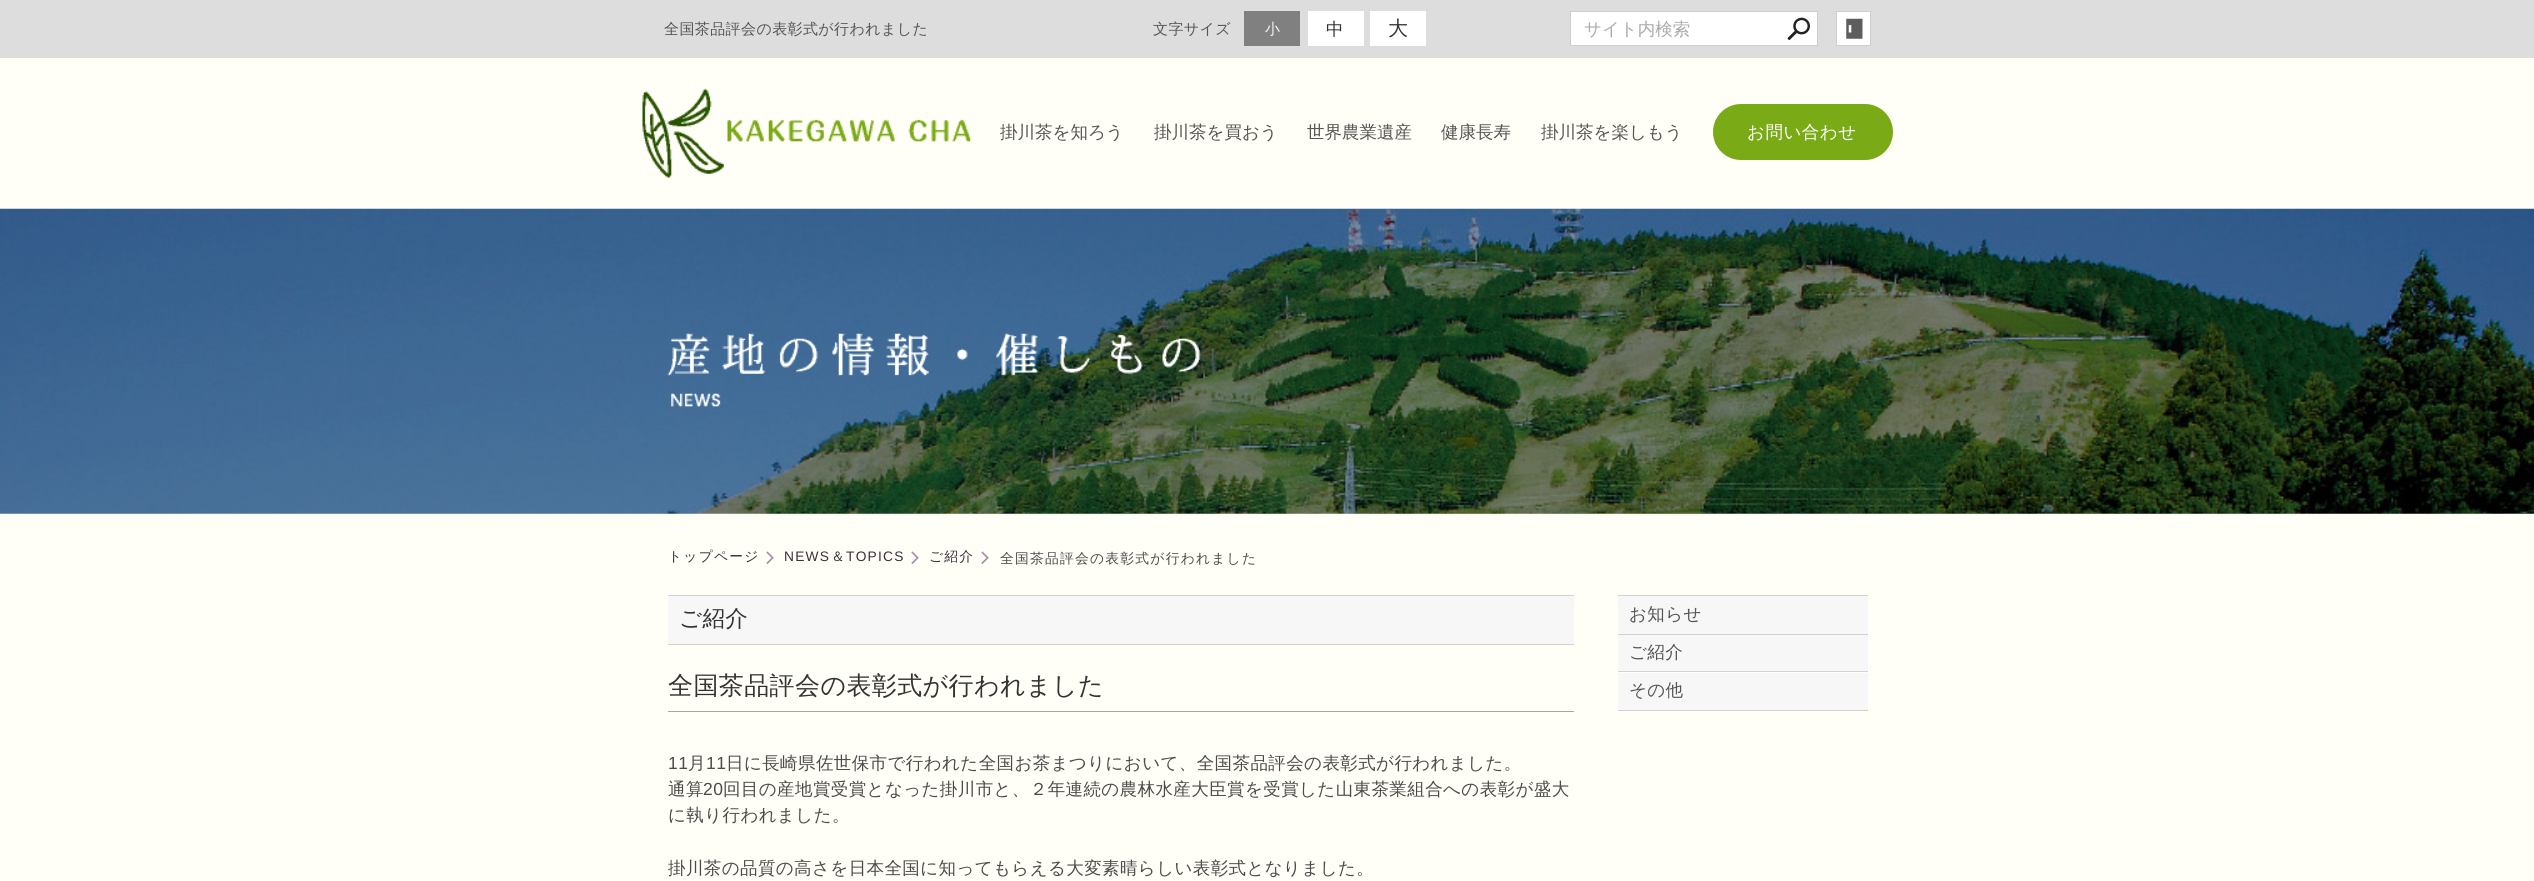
import math
import cairo

surface = cairo.ImageSurface(cairo.FORMAT_RGB24, 2534, 881)
c = cairo.Context(surface)
options = cairo.FontOptions()
options.set_hint_metrics(cairo.HINT_METRICS_OFF)
options.set_hint_style(cairo.HINT_STYLE_NONE)
c.set_font_options(options)
c.set_miter_limit(4)
def C(code):
 c.set_source_rgb(*(v / 255 for v in bytes.fromhex(code[-6:])))
def F(family, size, italic, bold):
 c.select_font_face(family, cairo.FONT_SLANT_ITALIC if italic else cairo.FONT_SLANT_NORMAL, cairo.FONT_WEIGHT_BOLD if bold else cairo.FONT_WEIGHT_NORMAL)
 c.set_font_size(size)
def T(x, y, s):
 c.move_to(x, y)
 c.show_text(s)
def L(x, y, s, letter, word):
 c.move_to(x, y)
 for ch in s:
  c.show_text(ch)
  c.rel_move_to(letter + word * (ch == ' '), 0)
def R(x, y, w, h):
 c.rectangle(x, y, w, h)
 c.fill()
def Q(x, y, w, h, r):
 c.new_sub_path()
 for i, (u, v) in enumerate([(x + w - r, y + h - r), (x + r, y + h - r), (x + r, y + r), (x + w - r, y + r)]):
  c.arc(u, v, r, i * math.pi / 2, (i + 1) * math.pi / 2)
 c.close_path()
def I(path, x, y, w, h):
 c.save()
 c.set_source_surface(cairo.ImageSurface.create_from_png(path), x, y)
 c.rectangle(x, y, w, h)
 c.fill()
 c.restore()
C('fffef7')
c.paint()
C('dddddd')
R(0,0,2534,58)
F('WenQuanYi Zen Hei Medium',15,0,0)
C('555555')
L(664,34,'全国茶品評会の表彰式が行われました',.4,0)
L(1153,34,'文字サイズ',.4,0)
C('808080')
R(1244,11,56,35)
C('f7f7f7')
L(1265,34,'小',.5,0)
C('ffffff')
R(1308,11,56,35)
F('WenQuanYi Zen Hei Medium',17.5,0,0)
C('333333')
L(1326,35,'中',.5,0)
C('ffffff')
R(1370,11,56,35)
F('WenQuanYi Zen Hei Medium',20,0,0)
C('333333')
L(1388,35,'大',.5,0)
C('ffffff')
c.rectangle(1570.5,11.5,247,34)
c.fill_preserve()
C('cecece')
c.set_line_width(1)
c.stroke()
F('WenQuanYi Zen Hei Medium',17.5,0,0)
C('aaaaaa')
T(1584,35,'サイト内検索')
I('1.png',1787,17,23,24)
C('ffffff')
R(1837,12,33,33)
I('2.png',1846,18,17,21)
c.rectangle(1836.5,11.5,34,34)
C('cecece')
c.stroke()
I('3.png',642,88,330,90)
C('555555')
T(1000,138,'掛川茶を知ろう')
T(1154,138,'掛川茶を買おう')
T(1307,138,'世界農業遺産')
T(1441,138,'健康長寿')
T(1541,138,'掛川茶を楽しもう')
C('7baa17')
Q(1713,104,180,56,28)
c.fill()
C('ffffff')
L(1747,138,'お問い合わせ',.5,0)
I('4.png',0,208,2534,306)
I('5.png',667,333,534,74)
F('WenQuanYi Zen Hei Medium',13.75,0,0)
C('3c2e3d')
L(668,561,'トップページ',1.25,0)
I('6.png',766,551,8,13)
F('Liberation Sans',13.75,0,0)
L(784,561,'NEWS',1.25,0)
F('WenQuanYi Zen Hei Medium',13.75,0,0)
L(831,561,'＆',1.25,0)
F('Liberation Sans',13.75,0,0)
L(846,561,'TOPICS',1.25,0)
I('6.png',911,551,8,13)
F('WenQuanYi Zen Hei Medium',13.75,0,0)
L(929,561,'ご紹介',1.25,0)
I('6.png',981,551,8,13)
C('4b4b4b')
L(1000,563,'全国茶品評会の表彰式が行われました',1.25,0)
C('f7f7f7')
R(668,596,906,48)
C('d2d2d2')
R(668,595,906,1)
R(668,644,906,1)
F('WenQuanYi Zen Hei Medium',22.5,0,0)
C('333333')
L(679,626,'ご紹介',.4,0)
C('a6a6a6')
R(668,711,906,1)
F('WenQuanYi Zen Hei Medium',25,0,0)
C('333333')
L(668,694,'全国茶品評会の表彰式が行われました',.4,0)
F('Liberation Sans',17.5,0,0)
C('4b4b4b')
L(668,769,'11',.4,0)
F('WenQuanYi Zen Hei Medium',17.5,0,0)
L(688,769,'月',.4,0)
F('Liberation Sans',17.5,0,0)
L(706,769,'11',.4,0)
F('WenQuanYi Zen Hei Medium',17.5,0,0)
L(726,769,'日に長崎県佐世保市で行われた全国お茶まつりにおいて、全国茶品評会の表彰式が行われました。',.4,0)
L(668,795,'通算',.4,0)
F('Liberation Sans',17.5,0,0)
L(703,795,'20',.4,0)
F('WenQuanYi Zen Hei Medium',17.5,0,0)
L(723,795,'回目の産地賞受賞となった掛川市と、２年連続の農林水産大臣賞を受賞した山東茶業組合への表彰が盛大',.4,0)
L(668,821,'に執り行われました。',.4,0)
L(668,874,'掛川茶の品質の高さを日本全国に知ってもらえる大変素晴らしい表彰式となりました。',.4,0)
C('f7f7f7')
R(1618,596,250,38)
C('d2d2d2')
R(1618,595,250,1)
R(1618,634,250,1)
C('555555')
L(1629,620,'お知らせ',.4,0)
C('f7f7f7')
R(1618,635,250,36)
C('d2d2d2')
R(1618,671,250,1)
C('555555')
L(1629,658,'ご紹介',.4,0)
C('f7f7f7')
R(1618,673,250,37)
C('d2d2d2')
R(1618,710,250,1)
C('555555')
L(1629,696,'その他',.4,0)
surface.write_to_png('o.png')
